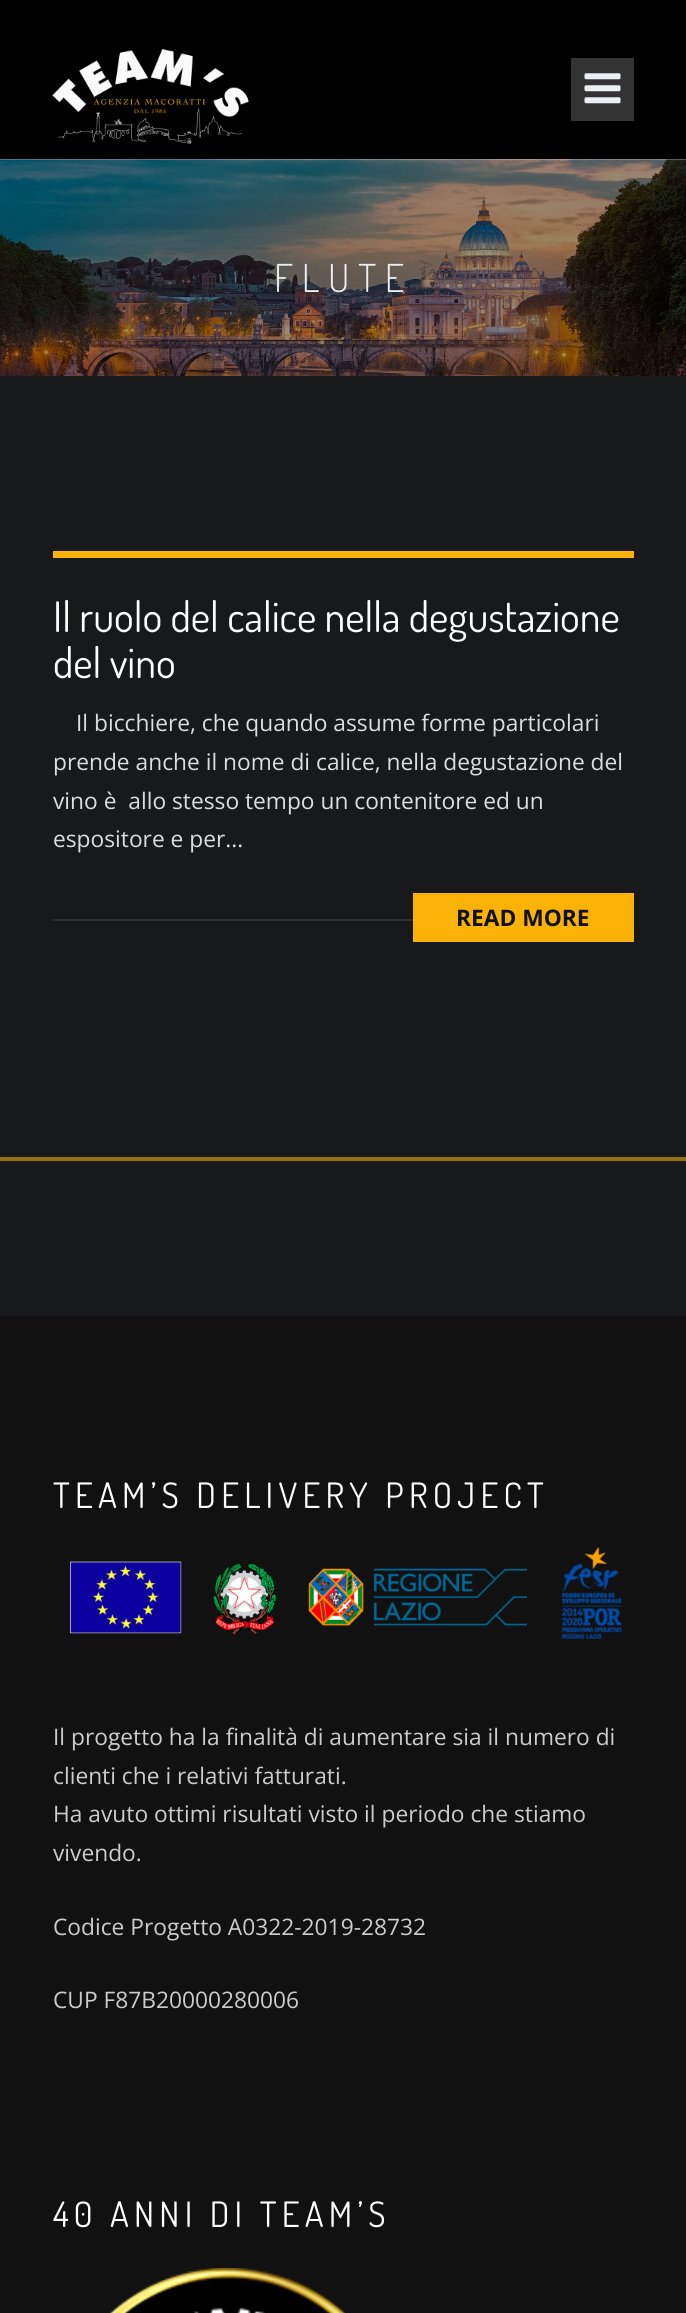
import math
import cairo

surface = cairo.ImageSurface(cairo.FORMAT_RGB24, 686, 2313)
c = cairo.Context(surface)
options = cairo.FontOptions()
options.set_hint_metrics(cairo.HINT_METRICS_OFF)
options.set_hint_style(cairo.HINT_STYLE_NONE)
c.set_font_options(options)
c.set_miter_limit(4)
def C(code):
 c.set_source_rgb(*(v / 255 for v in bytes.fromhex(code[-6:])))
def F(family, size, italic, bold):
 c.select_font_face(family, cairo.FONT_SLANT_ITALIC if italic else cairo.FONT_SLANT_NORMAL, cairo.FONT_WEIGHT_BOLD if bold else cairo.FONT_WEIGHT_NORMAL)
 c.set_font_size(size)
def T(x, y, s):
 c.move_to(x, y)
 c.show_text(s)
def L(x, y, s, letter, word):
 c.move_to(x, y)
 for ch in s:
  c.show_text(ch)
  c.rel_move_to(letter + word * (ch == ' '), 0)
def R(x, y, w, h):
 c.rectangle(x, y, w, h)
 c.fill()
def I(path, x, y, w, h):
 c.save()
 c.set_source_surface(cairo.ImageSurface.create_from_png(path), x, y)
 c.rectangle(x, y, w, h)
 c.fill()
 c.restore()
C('ffffff')
c.paint()
C('000000')
R(0,0,686,159)
I('1.png',52,49,197,95)
C('333333')
R(571,58,63,63)
I('2.png',584,73,37,31)
I('3.png',0,159,686,217)
F('Dosis Light',38.5,0,0)
C('eceff3')
L(274,292,'FLUTE',8.75,0)
C('18191b')
R(0,376,686,940)
C('2f3032')
R(53,919,360,2)
C('fab207')
R(53,551,581,7)
F('Dosis',42,0,0)
C('ffffff')
T(53,632,'Il ruolo del calice nella degustazione')
T(53,678,'del vino')
F('Open Sans',22.75,0,0)
C('dddddd')
T(76,731,'Il bicchiere, che quando assume forme particolari')
T(53,770,'prende anche il nome di calice, nella degustazione del')
T(53,809,'vino è  allo stesso tempo un contenitore ed un')
T(53,847,'espositore e per...')
C('fab207')
R(413,893,221,49)
F('Open Sans',22.75,0,1)
C('111111')
T(456,926,'READ MORE')
R(0,1316,686,997)
F('Dosis',35,0,0)
C('ffffff')
L(53,1508,'TEAM’S DELIVERY PROJECT',5.25,0)
I('4.png',70,1547,552,92)
F('Open Sans',22.75,0,0)
C('cccccc')
T(53,1745,'Il progetto ha la finalità di aumentare sia il numero di')
T(53,1784,'clienti che i relativi fatturati.')
T(53,1822,'Ha avuto ottimi risultati visto il periodo che stiamo')
T(53,1861,'vivendo.')
T(53,1935,'Codice Progetto A0322-2019-28732')
T(53,2008,'CUP F87B20000280006')
F('Dosis',35,0,0)
C('ffffff')
L(53,2227,'40 ANNI DI TEAM’S',5.25,0)
I('5.png',110,2268,236,45)
C('976f10')
R(0,1157,686,4)
surface.write_to_png('o.png')
